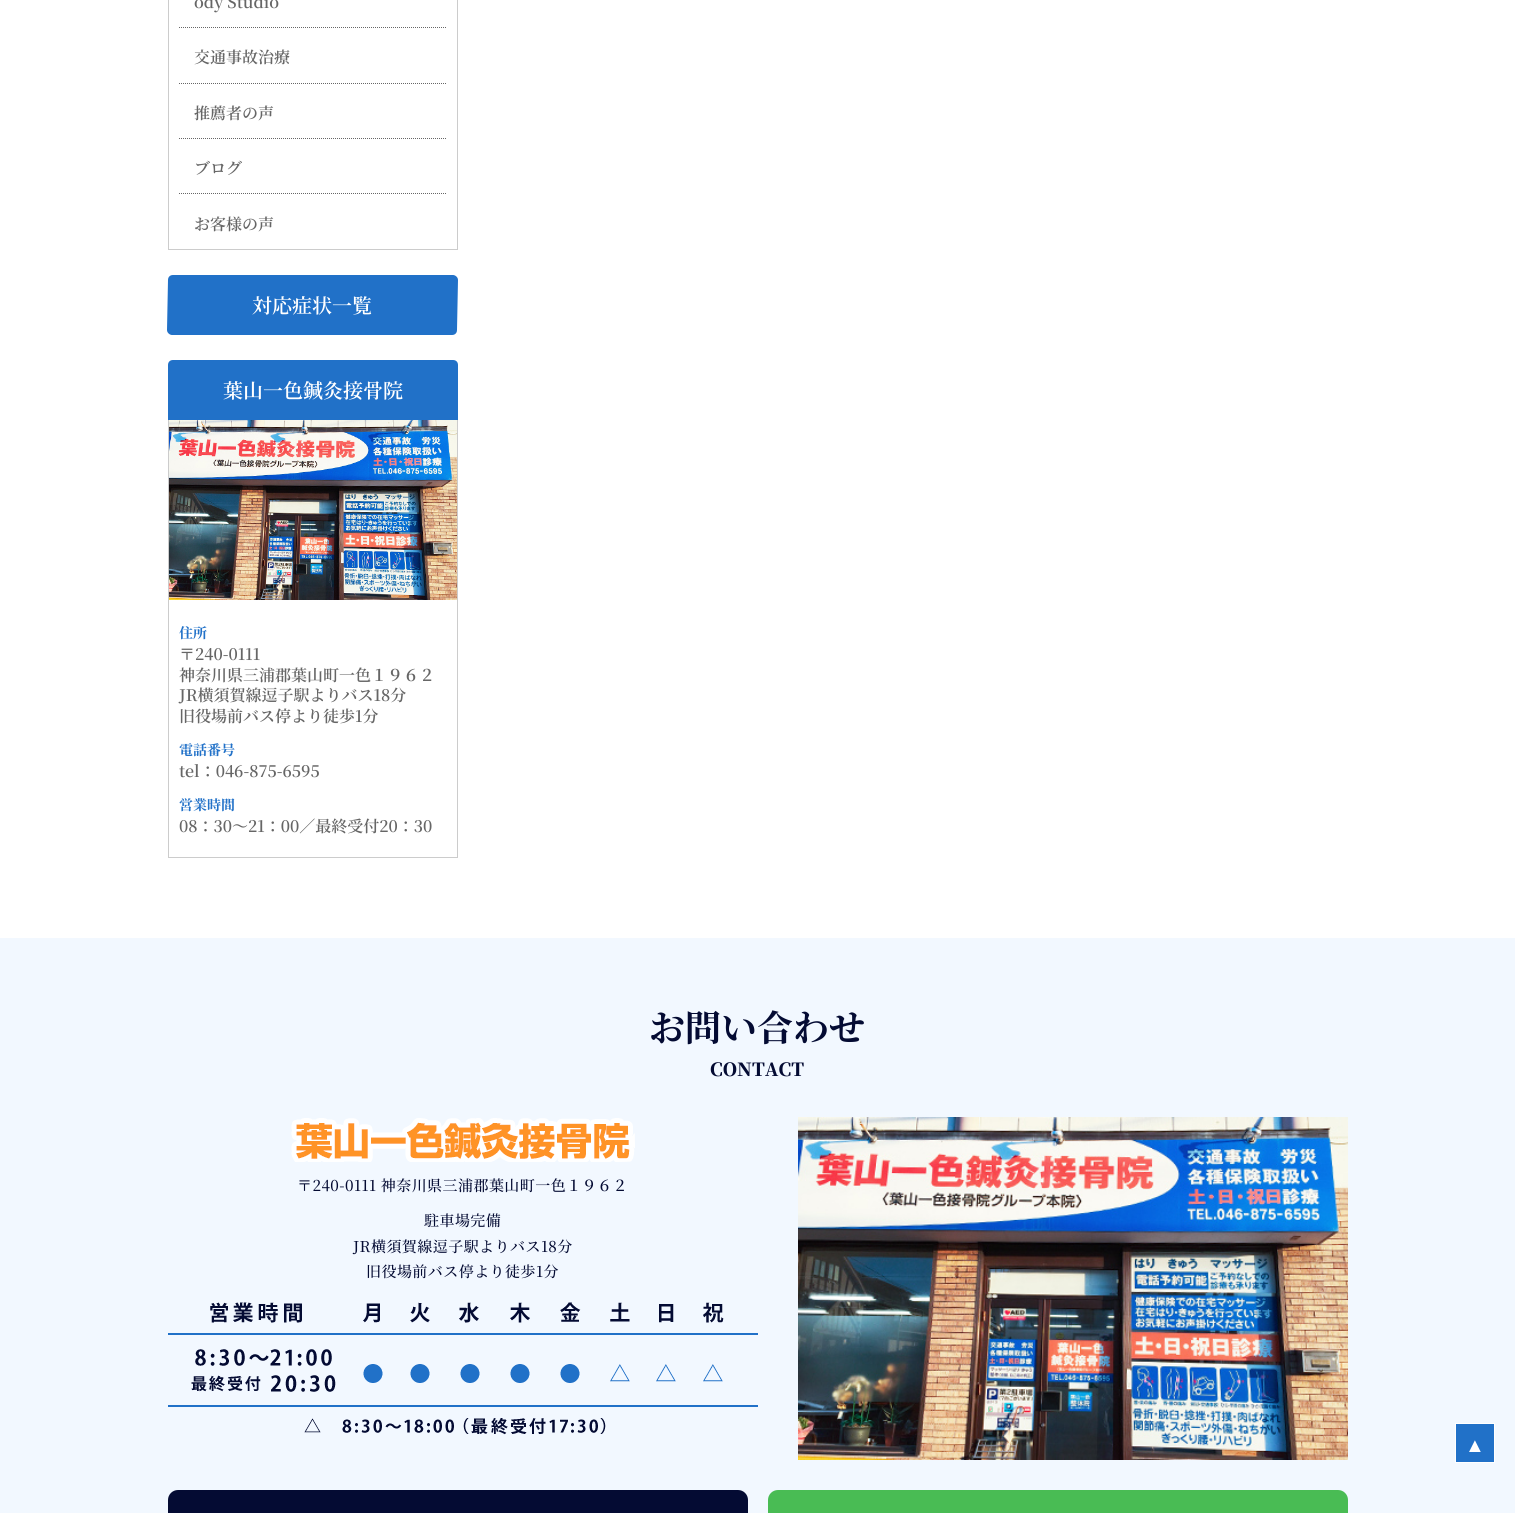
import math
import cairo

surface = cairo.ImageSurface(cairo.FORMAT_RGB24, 1515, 1513)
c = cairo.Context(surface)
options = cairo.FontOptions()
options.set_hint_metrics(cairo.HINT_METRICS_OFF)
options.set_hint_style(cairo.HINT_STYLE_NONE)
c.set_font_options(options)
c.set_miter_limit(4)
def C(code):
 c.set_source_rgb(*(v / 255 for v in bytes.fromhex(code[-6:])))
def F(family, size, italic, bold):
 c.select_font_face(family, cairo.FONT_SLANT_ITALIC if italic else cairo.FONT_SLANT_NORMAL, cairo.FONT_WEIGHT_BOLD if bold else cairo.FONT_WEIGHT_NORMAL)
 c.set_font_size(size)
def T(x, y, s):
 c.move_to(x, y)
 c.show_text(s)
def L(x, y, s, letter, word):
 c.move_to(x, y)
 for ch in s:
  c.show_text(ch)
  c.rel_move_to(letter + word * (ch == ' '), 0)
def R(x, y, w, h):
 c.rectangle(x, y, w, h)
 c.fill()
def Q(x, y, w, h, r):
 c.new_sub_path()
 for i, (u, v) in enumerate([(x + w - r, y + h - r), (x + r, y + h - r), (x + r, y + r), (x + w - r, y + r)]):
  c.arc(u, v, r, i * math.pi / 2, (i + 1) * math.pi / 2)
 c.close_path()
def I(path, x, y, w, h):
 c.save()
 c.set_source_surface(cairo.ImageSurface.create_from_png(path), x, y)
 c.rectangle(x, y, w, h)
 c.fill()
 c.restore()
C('ffffff')
c.paint()
C('cccccc')
R(457,0,1,250)
R(168,249,290,1)
R(168,0,1,250)
c.new_path()
c.move_to(179,27.5)
c.line_to(447,27.5)
C('666666')
c.set_line_width(1)
c.set_dash([1,1])
c.stroke()
F('Noto Serif JP SemiBold',16,0,0)
T(194,8,'ody Studio')
c.new_path()
c.move_to(179,83.5)
c.line_to(447,83.5)
c.stroke()
T(194,63,'交通事故治療')
c.new_path()
c.move_to(179,138.5)
c.line_to(447,138.5)
c.stroke()
T(194,119,'推薦者の声')
c.new_path()
c.move_to(179,193.5)
c.line_to(447,193.5)
c.stroke()
T(194,174,'ブログ')
T(194,230,'お客様の声')
C('2171c8')
c.new_path()
c.move_to(173,275)
c.line_to(453,275)
c.curve_to(455,275,458,277,458,280)
c.line_to(457,330)
c.curve_to(457,333,455,335,452,335)
c.line_to(172,335)
c.curve_to(170,335,167,333,167,330)
c.line_to(168,280)
c.curve_to(168,277,170,275,173,275)
c.close_path()
c.fill()
F('Noto Serif JP SemiBold',20,0,0)
C('ffffff')
T(252,313,'対応症状一覧')
C('2171c8')
c.new_path()
c.move_to(173,360)
c.line_to(453,360)
c.curve_to(456,360,458,362,458,365)
c.line_to(458,420)
c.line_to(168,420)
c.line_to(168,365)
c.curve_to(168,362,170,360,173,360)
c.close_path()
c.fill()
C('ffffff')
T(223,398,'葉山一色鍼灸接骨院')
C('cccccc')
R(457,420,1,438)
R(168,857,290,1)
R(168,420,1,438)
I('1.png',169,420,288,180)
F('Noto Serif JP',14,0,1)
C('2171c8')
T(179,638,'住所')
F('Noto Serif JP SemiBold',16,0,0)
C('666666')
T(179,660,'〒240-0111')
T(179,681,'神奈川県三浦郡葉山町一色１９６２')
T(179,701,'JR横須賀線逗子駅よりバス18分')
T(179,722,'旧役場前バス停より徒歩1分')
F('Noto Serif JP',14,0,1)
C('2171c8')
T(179,755,'電話番号')
F('Noto Serif JP SemiBold',16,0,0)
C('666666')
T(179,777,'tel：046-875-6595')
F('Noto Serif JP',14,0,1)
C('2171c8')
T(179,810,'営業時間')
F('Noto Serif JP SemiBold',16,0,0)
C('666666')
T(179,832,'08：30～21：00／最終受付20：30')
C('f2f8ff')
R(0,938,1515,575)
F('Noto Serif JP',36,0,1)
C('040b33')
T(649,1041,'お問い合わせ')
F('Noto Serif JP Black',18,0,0)
T(710,1076,'CONTACT')
I('2.png',291,1118,344,44)
F('Noto Serif JP Medium',15,0,0)
L(297,1191,'〒240-0111 神奈川県三浦郡葉山町一色１９６２',.45,0)
L(424,1226,'駐車場完備',.45,0)
L(353,1252,'JR横須賀線逗子駅よりバス18分',.45,0)
L(366,1277,'旧役場前バス停より徒歩1分',.45,0)
I('3.png',168,1302,590,133)
I('4.png',798,1117,550,343)
Q(168,1490,580,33,10)
c.fill()
C('49bc54')
Q(768,1490,580,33,10)
c.fill()
C('2171c8')
c.rectangle(1455.5,1423.5,39,39)
c.fill_preserve()
C('ffffff')
c.set_dash([])
c.stroke()
F('Liberation Serif',20,0,0)
T(1465,1452,'▲')
surface.write_to_png('o.png')
